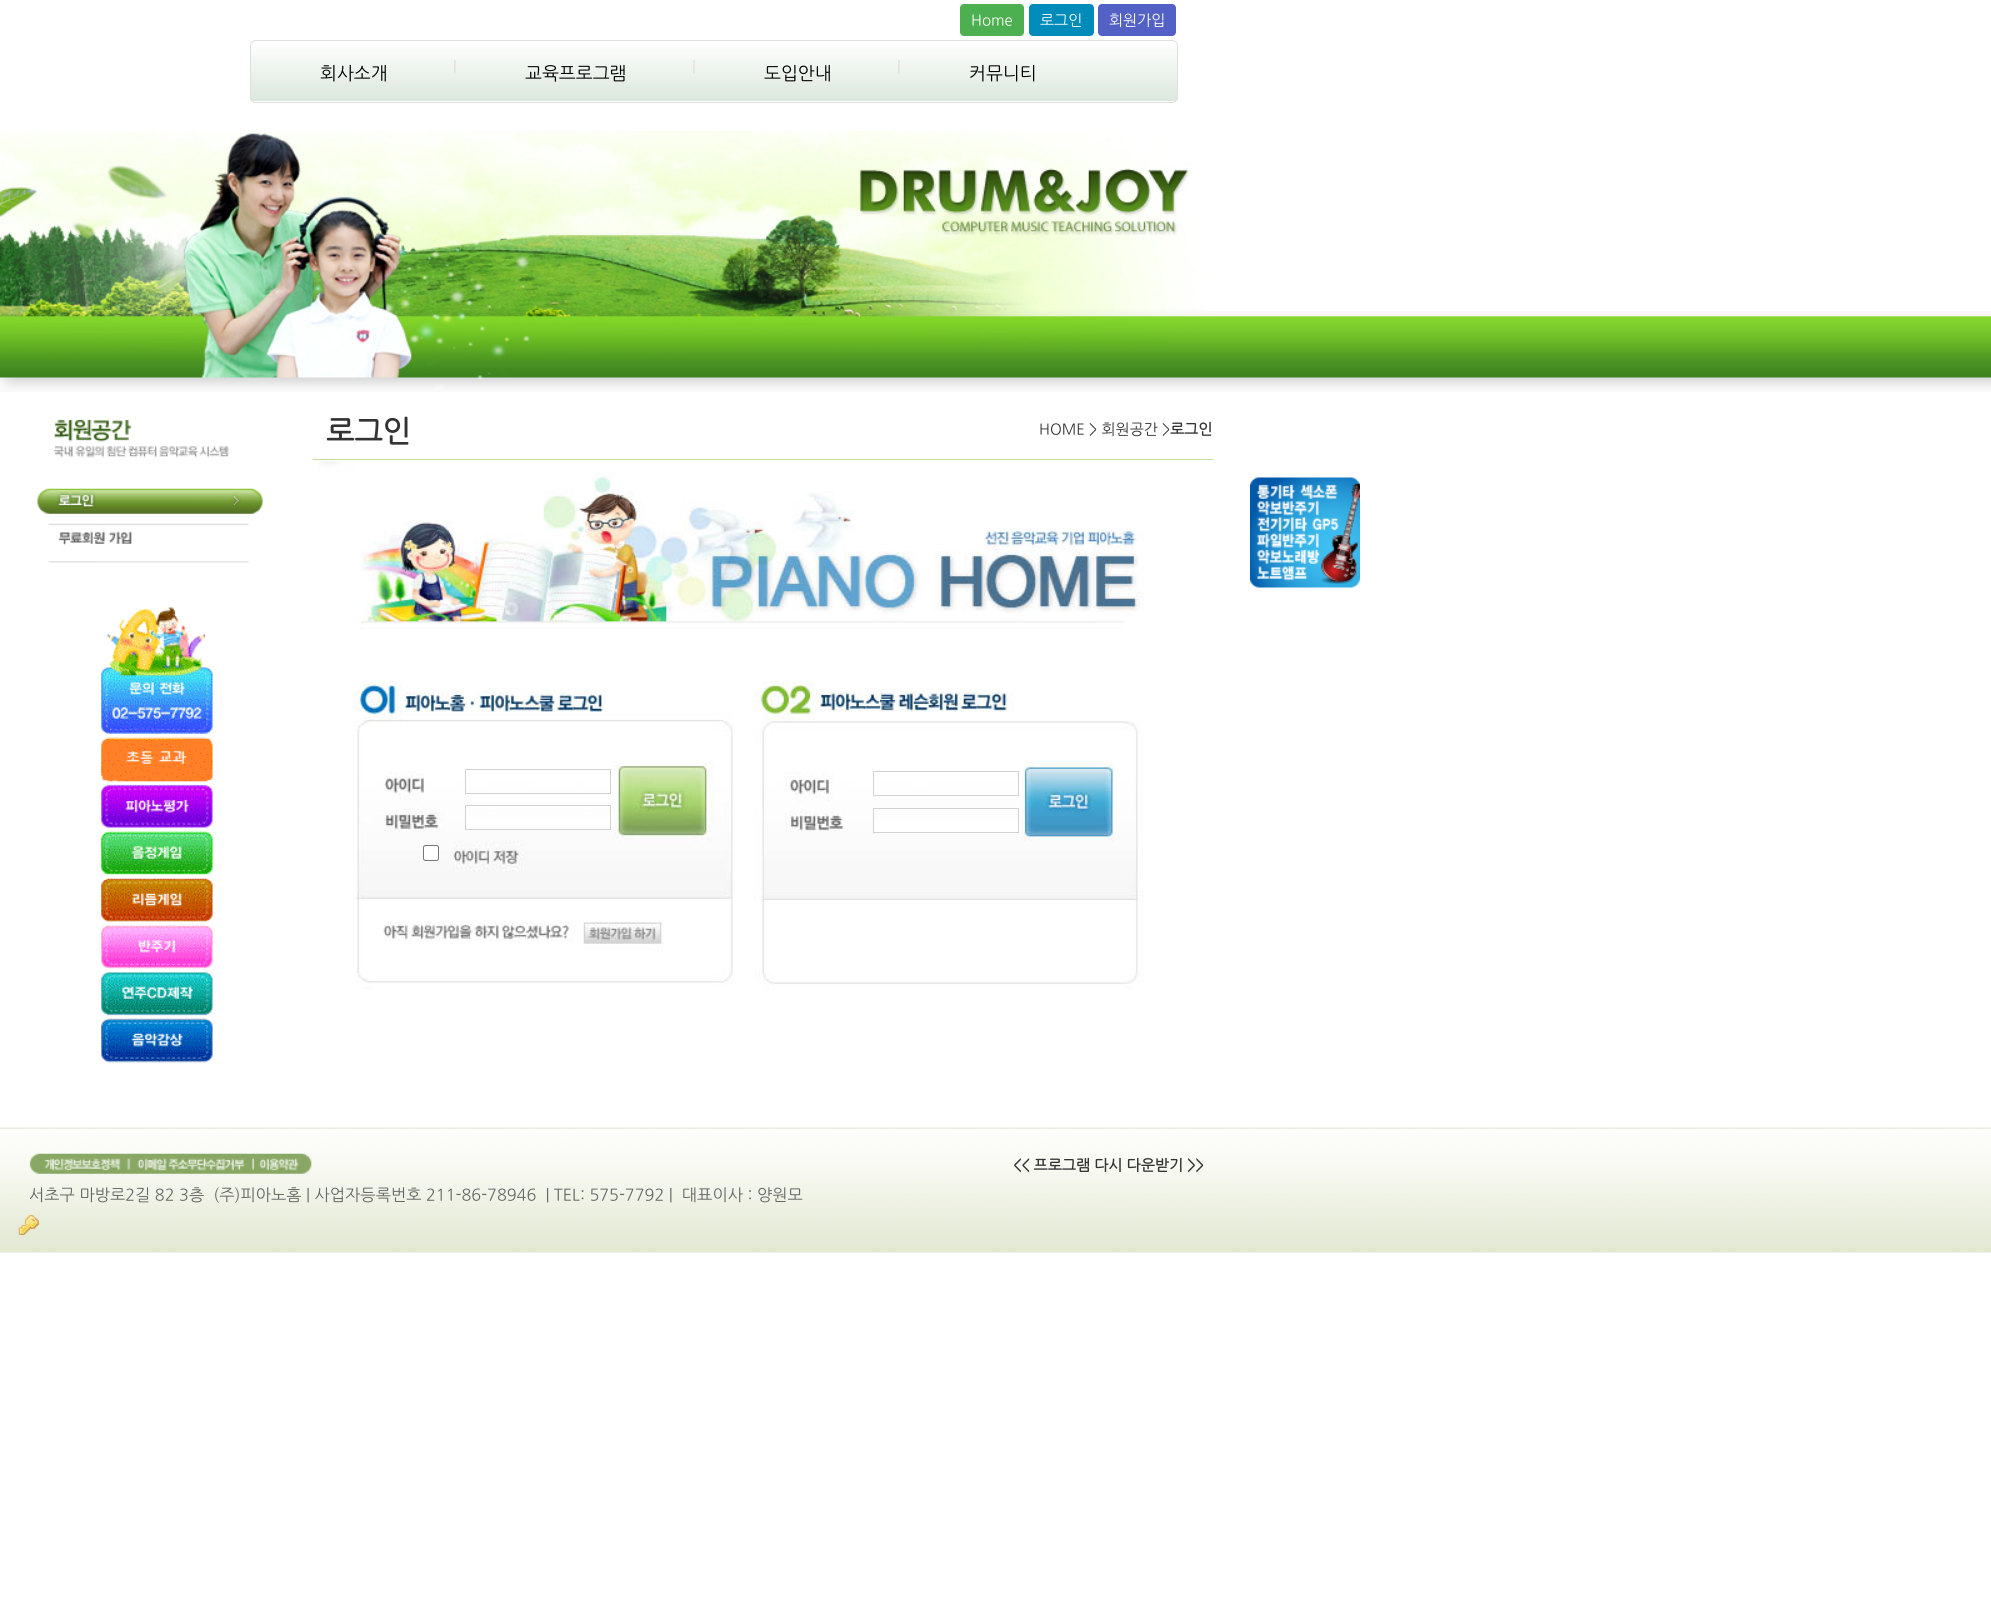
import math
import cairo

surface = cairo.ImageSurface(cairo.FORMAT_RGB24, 1991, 1608)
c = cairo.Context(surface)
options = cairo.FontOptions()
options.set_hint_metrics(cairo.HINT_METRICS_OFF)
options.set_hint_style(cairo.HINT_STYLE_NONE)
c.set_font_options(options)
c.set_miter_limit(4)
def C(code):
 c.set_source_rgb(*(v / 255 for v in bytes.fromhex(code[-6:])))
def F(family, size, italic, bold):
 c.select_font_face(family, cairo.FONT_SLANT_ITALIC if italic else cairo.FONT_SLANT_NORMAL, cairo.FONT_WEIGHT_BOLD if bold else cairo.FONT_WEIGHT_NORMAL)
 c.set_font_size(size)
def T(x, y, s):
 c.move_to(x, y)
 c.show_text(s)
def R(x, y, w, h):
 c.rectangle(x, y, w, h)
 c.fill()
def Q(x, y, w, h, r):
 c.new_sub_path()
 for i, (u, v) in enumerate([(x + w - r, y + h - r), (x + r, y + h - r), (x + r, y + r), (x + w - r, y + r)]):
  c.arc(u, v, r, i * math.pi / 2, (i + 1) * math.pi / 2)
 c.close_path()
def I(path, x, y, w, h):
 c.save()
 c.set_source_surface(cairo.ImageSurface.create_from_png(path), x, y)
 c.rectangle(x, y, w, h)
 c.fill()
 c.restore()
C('ffffff')
c.paint()
C('4caf50')
Q(960,4,64,32,4)
c.fill()
F('NanumGothic',15,0,0)
C('ffffff')
T(971,25,'Home')
C('008cba')
Q(1029,4,65,32,4)
c.fill()
C('ffffff')
T(1040,25,'로그인')
C('5361c6')
Q(1098,4,78,32,4)
c.fill()
C('ffffff')
T(1109,25,'회원가입')
c.save()
Q(250,40,928,63,6)
c.clip()
gradient = cairo.LinearGradient(714,101,714,41)
gradient.add_color_stop_rgba(0,0.859,0.906,0.863,1)
gradient.add_color_stop_rgba(1,1,1,1,1)
c.set_source(gradient)
R(250,41,928,60)
c.restore()
Q(250.5,40.5,927,62,5.5)
C('dee0e0')
c.set_line_width(1)
c.stroke()
F('NanumGothic',18,0,0)
C('000000')
T(320,79,'회사소개')
F('NanumGothic',15,0,0)
C('dadada')
T(453,71,'|')
F('NanumGothic',18,0,0)
C('000000')
T(525,79,'교육프로그램')
F('NanumGothic',15,0,0)
C('dadada')
T(692,71,'|')
F('NanumGothic',18,0,0)
C('000000')
T(764,79,'도입안내')
F('NanumGothic',15,0,0)
C('dadada')
T(897,71,'|')
F('NanumGothic',18,0,0)
C('000000')
T(969,79,'커뮤니티')
I('1.png',0,311,1991,81)
I('2.png',0,131,1205,259)
I('3.png',53,419,176,39)
I('4.png',37,488,226,38)
I('5.png',48,531,201,32)
I('6.png',101,607,112,456)
C('c4df9b')
R(313,459,900,1)
F('NanumGothic',30,0,1)
C('333333')
T(326,441,'로그인')
F('NanumGothic',15,0,0)
T(1039,434,'HOME > 회원공간 >')
F('NanumGothic',15,0,1)
T(1170,434,'로그인')
I('7.png',1250,477,110,111)
I('8.png',318,461,826,528)
c.rectangle(465.5,769.5,145,24)
C('d2d2d2')
c.stroke()
C('ffffff')
R(466,817,144,12)
c.rectangle(465.5,805.5,145,24)
C('d2d2d2')
c.stroke()
C('ffffff')
Q(423.5,845.5,15,15,2)
c.fill_preserve()
C('767676')
c.stroke()
c.rectangle(873.5,771.5,145,24)
C('d2d2d2')
c.stroke()
C('ffffff')
R(874,821,144,11)
c.rectangle(873.5,808.5,145,24)
C('d2d2d2')
c.stroke()
I('9.png',0,1127,1991,126)
I('10.png',29,1153,283,21)
C('333333')
T(1013,1170,'<< 프로그램 다시 다운받기 >>')
F('NanumGothic',16.25,0,0)
C('666666')
T(29,1200,'서초구 마방로2길 82 3층  (주)피아노홈 | 사업자등록번호 211-86-78946  | TEL: 575-7792 |  대표이사 : 양원모')
I('11.png',18,1215,21,20)
surface.write_to_png('o.png')
